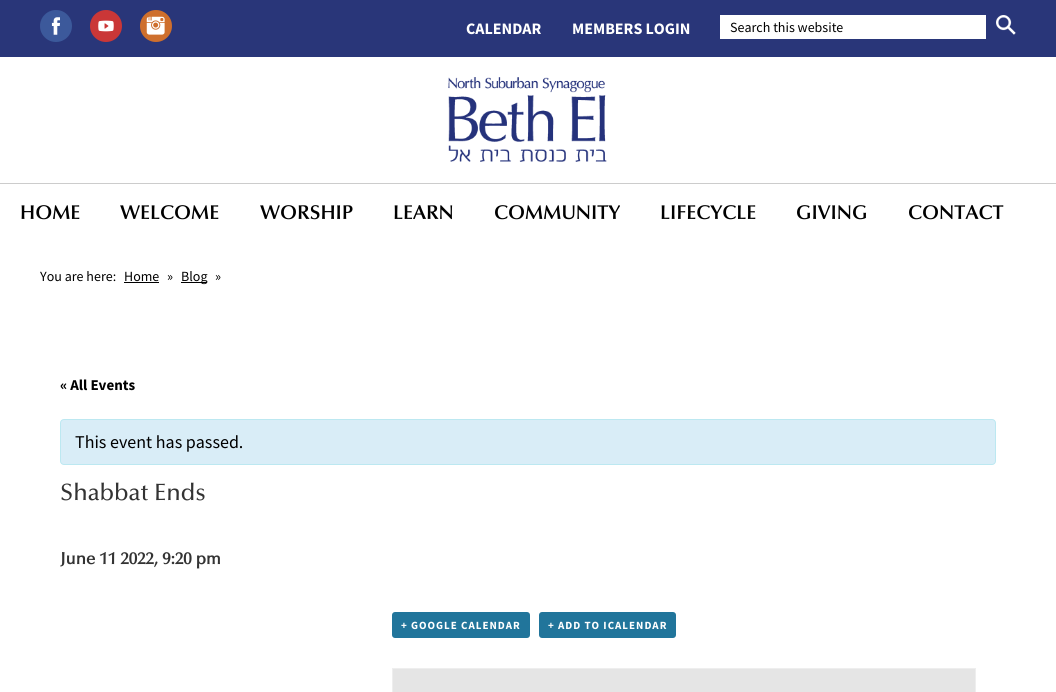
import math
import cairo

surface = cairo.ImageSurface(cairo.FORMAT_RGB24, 1056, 692)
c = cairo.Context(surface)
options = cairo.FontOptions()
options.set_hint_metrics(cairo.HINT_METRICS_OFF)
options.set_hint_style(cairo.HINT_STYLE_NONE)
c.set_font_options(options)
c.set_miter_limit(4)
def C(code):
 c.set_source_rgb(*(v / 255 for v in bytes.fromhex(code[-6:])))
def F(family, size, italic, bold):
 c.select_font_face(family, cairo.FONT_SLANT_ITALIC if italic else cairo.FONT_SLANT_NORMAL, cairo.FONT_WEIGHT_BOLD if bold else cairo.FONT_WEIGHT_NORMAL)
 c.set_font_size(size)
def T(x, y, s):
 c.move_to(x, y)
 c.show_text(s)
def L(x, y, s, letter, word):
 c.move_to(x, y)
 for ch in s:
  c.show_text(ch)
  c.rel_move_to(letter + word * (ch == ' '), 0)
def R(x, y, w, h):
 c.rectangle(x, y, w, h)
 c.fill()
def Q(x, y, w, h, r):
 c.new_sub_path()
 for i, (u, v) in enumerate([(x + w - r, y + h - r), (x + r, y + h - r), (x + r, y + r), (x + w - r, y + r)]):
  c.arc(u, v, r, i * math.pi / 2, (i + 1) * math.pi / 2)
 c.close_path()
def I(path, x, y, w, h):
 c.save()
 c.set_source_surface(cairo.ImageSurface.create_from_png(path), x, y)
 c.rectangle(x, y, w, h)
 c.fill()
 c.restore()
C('293679')
c.paint()
I('1.png',40,10,32,32)
I('2.png',90,10,32,32)
I('3.png',140,10,32,32)
F('Source Sans Pro',16,0,1)
C('ffffff')
T(466,34,'CALENDAR')
T(572,34,'MEMBERS LOGIN')
R(720,15,266,24)
F('Source Sans Pro',14,0,0)
C('000000')
T(730,32,'Search this website')
I('4.png',996,15,20,20)
C('ffffff')
R(0,57,1056,126)
I('5.png',448,77,159,85)
R(0,184,1056,508)
C('cccccc')
R(0,183,1056,1)
F('Optima SemiBold',20,0,0)
C('000000')
T(20,219,'HOME')
T(120,219,'WELCOME')
T(260,219,'WORSHIP')
T(393,219,'LEARN')
T(494,219,'COMMUNITY')
T(660,219,'LIFECYCLE')
T(796,219,'GIVING')
T(908,219,'CONTACT')
F('Source Sans Pro',14,0,0)
T(40,281,'You are here:')
T(124,281,'Home')
R(124,282,35,1)
T(167,281,'»')
R(181,282,26,1)
T(181,281,'Blog')
T(215,281,'»')
F('Source Sans Pro',15,0,1)
T(60,390,'« All Events')
C('d9edf7')
Q(60.5,419.5,935,45,3.5)
c.fill_preserve()
C('bce8f1')
c.set_line_width(1)
c.stroke()
F('Source Sans Pro',18,0,0)
C('000000')
T(75,448,'This event has passed.')
F('Optima Medium',23.75,0,0)
C('333333')
T(60,500,'Shabbat Ends')
F('Optima',16.75,0,1)
T(60,564,'June 11 2022, 9:20 pm')
C('21759b')
Q(392,612,138,26,3)
c.fill()
F('Source Sans Pro',11,0,1)
C('ffffff')
L(401,629,'+ GOOGLE CALENDAR',1,0)
C('21759b')
Q(539,612,137,26,3)
c.fill()
C('ffffff')
L(548,629,'+ ADD TO ICALENDAR',1,0)
C('e5e5e5')
c.rectangle(392.5,668.5,583,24)
c.fill_preserve()
C('eeeeee')
c.stroke()
surface.write_to_png('o.png')
